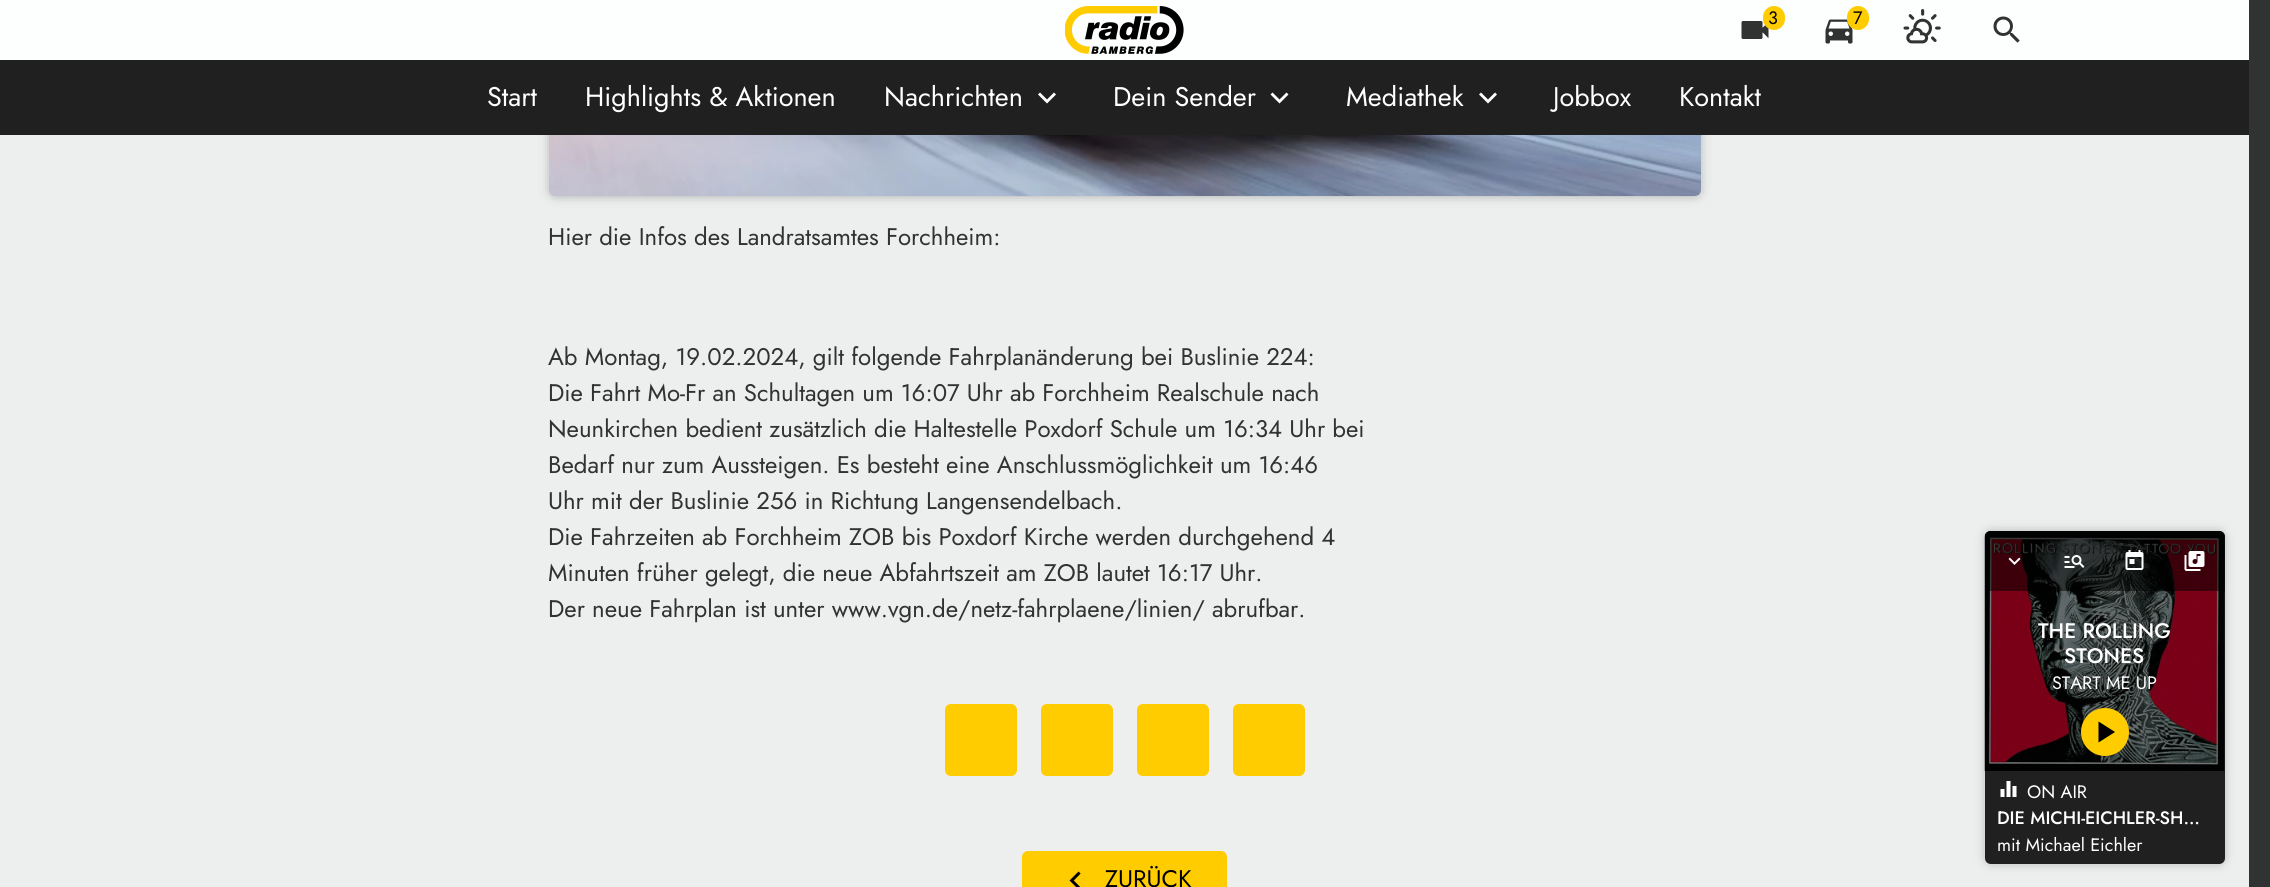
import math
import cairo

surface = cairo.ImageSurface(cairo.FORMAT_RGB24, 2270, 887)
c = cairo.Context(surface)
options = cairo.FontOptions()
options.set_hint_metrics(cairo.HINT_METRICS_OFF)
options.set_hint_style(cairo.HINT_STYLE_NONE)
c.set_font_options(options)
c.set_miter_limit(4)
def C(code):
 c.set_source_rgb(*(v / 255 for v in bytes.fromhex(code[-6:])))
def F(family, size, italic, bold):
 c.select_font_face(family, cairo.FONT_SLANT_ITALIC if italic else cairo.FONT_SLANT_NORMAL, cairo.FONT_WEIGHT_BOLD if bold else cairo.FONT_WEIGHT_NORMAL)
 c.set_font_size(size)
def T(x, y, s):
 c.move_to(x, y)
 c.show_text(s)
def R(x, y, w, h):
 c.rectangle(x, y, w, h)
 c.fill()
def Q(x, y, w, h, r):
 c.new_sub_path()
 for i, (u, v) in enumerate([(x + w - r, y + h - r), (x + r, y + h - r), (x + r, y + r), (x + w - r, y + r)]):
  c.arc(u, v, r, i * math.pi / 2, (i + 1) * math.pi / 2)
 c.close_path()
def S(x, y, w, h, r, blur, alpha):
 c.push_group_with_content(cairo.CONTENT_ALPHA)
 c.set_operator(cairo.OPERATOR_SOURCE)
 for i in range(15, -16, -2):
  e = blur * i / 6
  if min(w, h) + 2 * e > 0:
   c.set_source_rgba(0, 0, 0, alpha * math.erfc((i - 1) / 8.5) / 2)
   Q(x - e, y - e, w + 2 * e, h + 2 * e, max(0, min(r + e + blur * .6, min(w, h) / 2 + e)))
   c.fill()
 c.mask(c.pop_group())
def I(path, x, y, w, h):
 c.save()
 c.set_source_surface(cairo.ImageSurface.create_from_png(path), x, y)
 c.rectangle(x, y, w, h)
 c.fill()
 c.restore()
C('313333')
c.paint()
C('edefef')
R(0,135,2249,752)
C('000000')
S(552,-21,1146,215,3,6,.4)
C('fdffff')
R(0,0,2249,60)
I('1.png',1065,6,119,48)
I('2.png',1741,21,28,18)
C('ffcc00')
Q(1763,6,22,24,11)
c.fill()
F('Jost',18,0,0)
C('000000')
T(1768,24,'3')
I('3.png',1825,19,28,25)
C('ffcc00')
Q(1847,6,22,24,11)
c.fill()
C('000000')
T(1853,24,'7')
I('4.png',1903,9,38,35)
I('5.png',1993,16,27,27)
C('202020')
R(0,60,2249,75)
F('Jost',27,0,0)
C('ffffff')
T(487,106,'Start')
T(585,106,'Highlights & Aktionen')
T(884,106,'Nachrichten')
c.new_path()
c.move_to(1054,92.5)
c.line_to(1056,94.5)
c.line_to(1047,103.5)
c.line_to(1038,94.5)
c.line_to(1040,92.5)
c.line_to(1047,99.5)
c.close_path()
c.fill()
T(1113,106,'Dein Sender')
c.new_path()
c.move_to(1286.5,92.5)
c.line_to(1288.5,94.5)
c.line_to(1279.5,103.5)
c.line_to(1270.5,94.5)
c.line_to(1272.5,92.5)
c.line_to(1279.5,99.5)
c.close_path()
c.fill()
T(1346,106,'Mediathek')
c.new_path()
c.move_to(1495,92.5)
c.line_to(1497,94.5)
c.line_to(1488,103.5)
c.line_to(1479,94.5)
c.line_to(1481,92.5)
c.line_to(1488,99.5)
c.close_path()
c.fill()
T(1553,106,'Jobbox')
T(1679,106,'Kontakt')
I('6.png',549,135,1152,61)
F('Jost',24,0,0)
C('313333')
T(548,245,'Hier die Infos des Landratsamtes Forchheim:')
T(548,365,'Ab Montag, 19.02.2024, gilt folgende Fahrplanänderung bei Buslinie 224:')
T(548,401,'Die Fahrt Mo-Fr an Schultagen um 16:07 Uhr ab Forchheim Realschule nach')
T(548,437,'Neunkirchen bedient zusätzlich die Haltestelle Poxdorf Schule um 16:34 Uhr bei')
T(548,473,'Bedarf nur zum Aussteigen. Es besteht eine Anschlussmöglichkeit um 16:46')
T(548,509,'Uhr mit der Buslinie 256 in Richtung Langensendelbach.')
T(548,545,'Die Fahrzeiten ab Forchheim ZOB bis Poxdorf Kirche werden durchgehend 4')
T(548,581,'Minuten früher gelegt, die neue Abfahrtszeit am ZOB lautet 16:17 Uhr.')
T(548,617,'Der neue Fahrplan ist unter www.vgn.de/netz-fahrplaene/linien/ abrufbar.')
C('ffcc00')
Q(945,704,72,72,6)
c.fill()
Q(1041,704,72,72,6)
c.fill()
Q(1137,704,72,72,6)
c.fill()
Q(1233,704,72,72,6)
c.fill()
Q(1022,851,205,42,6)
c.fill()
I('7.png',1069,871,12,16)
C('000000')
T(1105,887,'ZURÜCK')
C('000000')
S(1988,534,234,327,3,6,.4)
C('202020')
c.new_path()
c.move_to(1991,531)
c.line_to(2219,531)
c.curve_to(2222.5,531,2225,533.5,2225,537)
c.line_to(2225,771)
c.line_to(1985,771)
c.line_to(1985,537)
c.curve_to(1985,533.5,1987.5,531,1991,531)
c.close_path()
c.fill()
c.set_source_rgba(1,1,1,0.1)
c.new_path()
c.move_to(1991,531)
c.line_to(2219,531)
c.curve_to(2222.5,531,2225,533.5,2225,537)
c.line_to(2225,771)
c.line_to(1985,771)
c.line_to(1985,537)
c.curve_to(1985,533.5,1987.5,531,1991,531)
c.close_path()
c.fill()
I('12.png',1984,531,241,240)
c.set_source_rgba(0,0,0,0.5)
c.new_path()
c.move_to(1991,531)
c.line_to(2219,531)
c.curve_to(2222.5,531,2225,533.5,2225,537)
c.line_to(2225,771)
c.line_to(1985,771)
c.line_to(1985,537)
c.curve_to(1985,533.5,1987.5,531,1991,531)
c.close_path()
c.fill()
c.new_path()
c.move_to(1991,531)
c.line_to(2219,531)
c.curve_to(2222.5,531,2225,533.5,2225,537)
c.line_to(2225,591)
c.line_to(1985,591)
c.line_to(1985,537)
c.curve_to(1985,533.5,1987.5,531,1991,531)
c.close_path()
c.fill()
I('8.png',2008,557,13,8)
I('9.png',2064,555,21,13)
I('10.png',2125,550,19,20)
I('11.png',2184,551,21,20)
F('Jost Medium',21,0,0)
C('ffffff')
T(2038,638,'THE ROLLING')
T(2064,663,'STONES')
F('Jost',18,0,0)
T(2052,689,'START ME UP')
C('ffcc00')
c.new_path()
c.arc(2105,732,24,0,2 * math.pi)
c.fill()
C('000000')
c.new_path()
c.move_to(2098.5,721.5)
c.line_to(2115,732)
c.line_to(2098.5,742.5)
c.close_path()
c.fill()
C('202020')
c.new_path()
c.move_to(1985,771)
c.line_to(2225,771)
c.line_to(2225,858)
c.curve_to(2225,861.5,2222.5,864,2219,864)
c.line_to(1991,864)
c.curve_to(1987.5,864,1985,861.5,1985,858)
c.close_path()
c.fill()
I('13.png',2000,781,17,16)
C('ffffff')
T(2027,798,'ON AIR')
F('Jost Medium',18,0,0)
T(1997,824,'DIE MICHI-EICHLER-SH…')
F('Jost',18,0,0)
T(1997,851,'mit Michael Eichler')
surface.write_to_png('o.png')
